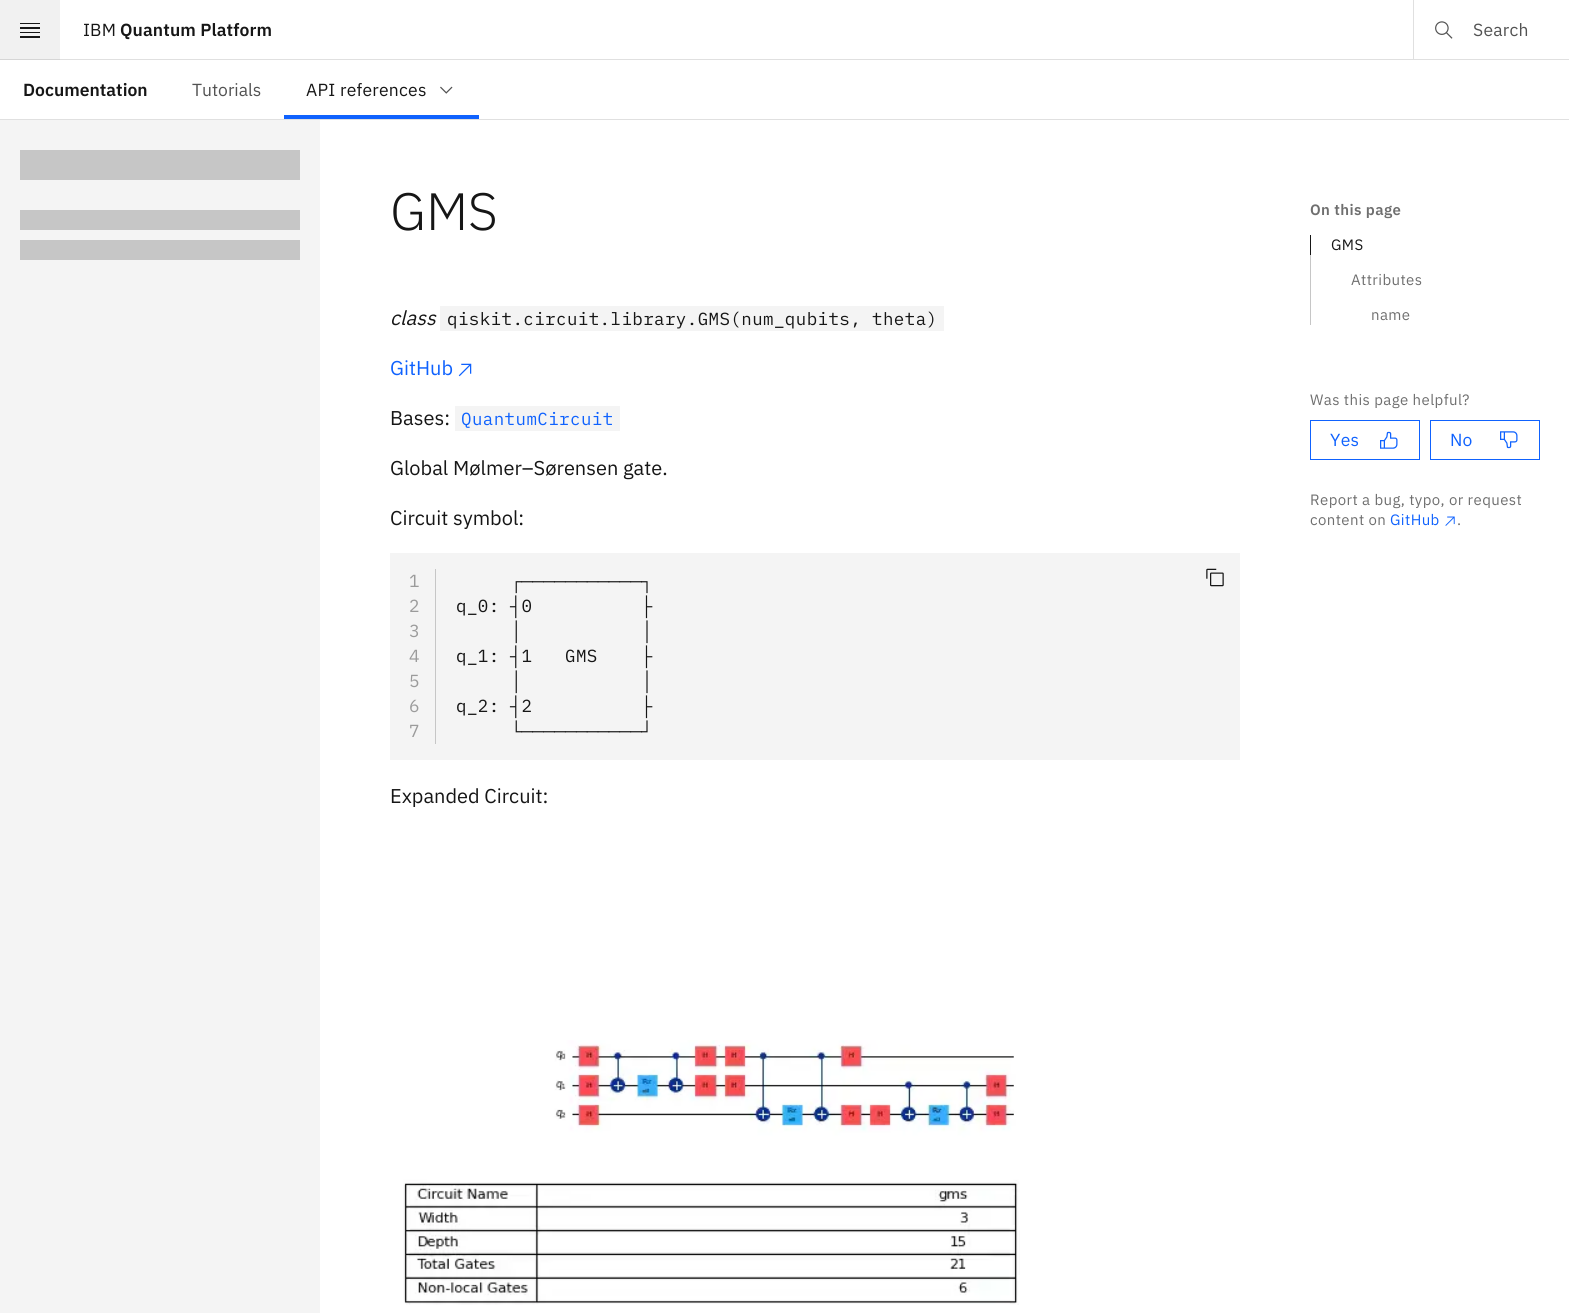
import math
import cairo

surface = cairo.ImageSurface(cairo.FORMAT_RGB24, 1569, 1313)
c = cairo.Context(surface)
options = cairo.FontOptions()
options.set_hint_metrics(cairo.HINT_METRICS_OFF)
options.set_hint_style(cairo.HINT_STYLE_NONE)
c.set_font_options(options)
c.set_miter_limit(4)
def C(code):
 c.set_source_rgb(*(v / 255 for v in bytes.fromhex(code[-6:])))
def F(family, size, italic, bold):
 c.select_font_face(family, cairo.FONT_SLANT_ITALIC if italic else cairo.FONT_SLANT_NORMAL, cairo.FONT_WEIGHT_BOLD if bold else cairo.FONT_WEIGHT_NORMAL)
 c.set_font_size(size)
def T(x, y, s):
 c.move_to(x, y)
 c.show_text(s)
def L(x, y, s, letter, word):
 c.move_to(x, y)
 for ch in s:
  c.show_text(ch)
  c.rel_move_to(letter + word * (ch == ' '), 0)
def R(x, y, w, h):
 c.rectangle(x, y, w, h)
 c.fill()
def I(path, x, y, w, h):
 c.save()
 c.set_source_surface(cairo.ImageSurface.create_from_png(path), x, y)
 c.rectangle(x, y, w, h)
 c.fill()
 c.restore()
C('ffffff')
c.paint()
C('f1f1f1')
R(0,0,60,59)
C('e0e0e0')
R(60,59,1509,1)
C('d6d6d6')
R(0,59,60,1)
C('161616')
R(20,36,20,2)
R(20,32,20,1)
R(20,27,20,2)
R(20,23,20,1)
F('IBM Plex Sans',17.5,0,0)
L(83,36,'IBM',.1,0)
F('IBM Plex Sans SemiBold',17.5,0,0)
L(120,36,'Quantum Platform',.1,0)
C('e0e0e0')
R(1413,0,1,59)
I('1.png',1435,21,18,18)
F('IBM Plex Sans',17.5,0,0)
C('525252')
L(1473,36,'Search',.25,0)
C('e0e0e0')
R(0,119,1569,1)
F('IBM Plex Sans SemiBold',17.5,0,0)
C('161616')
T(23,96,'Documentation')
F('IBM Plex Sans',17.5,0,0)
C('525252')
T(192,96,'Tutorials')
C('161616')
L(306,96,'API references',.25,0)
I('2.png',440,86,13,8)
C('0f62fe')
R(284,115,195,4)
C('f4f4f4')
R(0,120,320,1193)
C('c6c6c6')
R(20,150,280,30)
R(20,210,280,20)
R(20,240,280,20)
F('IBM Plex Sans Light',52.5,0,0)
C('161616')
T(390,230,'GMS')
F('IBM Plex Sans',20,1,0)
T(390,325,'class')
C('f4f4f4')
R(440,306,504,25)
F('IBM Plex Mono',17.5,0,0)
C('161616')
L(447,325,'qiskit.circuit.library.GMS(num_qubits, theta)',.4,0)
F('IBM Plex Sans',20,0,0)
C('0f62fe')
T(390,375,'GitHub')
I('3.png',458,363,14,14)
C('161616')
T(390,425,'Bases:')
C('f4f4f4')
R(455,406,165,25)
F('IBM Plex Mono',17.5,0,0)
C('0f62fe')
L(461,425,'QuantumCircuit',.4,0)
F('IBM Plex Sans',20,0,0)
C('161616')
T(390,475,'Global Mølmer–Sørensen gate.')
T(390,525,'Circuit symbol:')
C('f4f4f4')
R(390,553,850,207)
C('c6c6c6')
R(435,569,1,175)
F('IBM Plex Mono',17.5,0,0)
C('9b9b9b')
L(409,587,'1',.4,0)
C('161616')
L(511,587,'┌───────────┐',.4,0)
C('9b9b9b')
L(409,612,'2',.4,0)
C('161616')
L(456,612,'q_0: ┤0          ├',.4,0)
C('9b9b9b')
L(409,637,'3',.4,0)
C('161616')
L(511,637,'│           │',.4,0)
C('9b9b9b')
L(409,662,'4',.4,0)
C('161616')
L(456,662,'q_1: ┤1   GMS    ├',.4,0)
C('9b9b9b')
L(409,687,'5',.4,0)
C('161616')
L(511,687,'│           │',.4,0)
C('9b9b9b')
L(409,712,'6',.4,0)
C('161616')
L(456,712,'q_2: ┤2          ├',.4,0)
C('9b9b9b')
L(409,737,'7',.4,0)
C('161616')
L(511,737,'└───────────┘',.4,0)
I('4.png',1206,568,18,19)
F('IBM Plex Sans',20,0,0)
T(390,803,'Expanded Circuit:')
I('5.png',403,1040,617,265)
F('IBM Plex Sans SemiBold',15,0,0)
C('6f6f6f')
L(1310,215,'On this page',.4,0)
C('c6c6c6')
R(1310,255,1,70)
C('161616')
R(1310,235,1,20)
F('IBM Plex Sans',15,0,0)
L(1331,250,'GMS',.4,0)
C('6f6f6f')
L(1351,285,'Attributes',.4,0)
L(1371,320,'name',.4,0)
L(1310,405,'Was this page helpful?',.4,0)
c.rectangle(1310.5,420.5,109,39)
C('0f62fe')
c.set_line_width(1)
c.stroke()
F('IBM Plex Sans',17.5,0,0)
L(1330,446,'Yes',.25,0)
I('6.png',1380,431,18,18)
c.rectangle(1430.5,420.5,109,39)
c.stroke()
L(1450,446,'No',.25,0)
I('7.png',1500,431,18,18)
F('IBM Plex Sans',15,0,0)
C('6f6f6f')
L(1310,505,'Report a bug, typo, or request',.4,0)
L(1310,525,'content on',.4,0)
C('0f62fe')
L(1390,525,'GitHub',.4,0)
I('8.png',1445,516,10,10)
C('6f6f6f')
L(1457,525,'.',.4,0)
surface.write_to_png('o.png')
